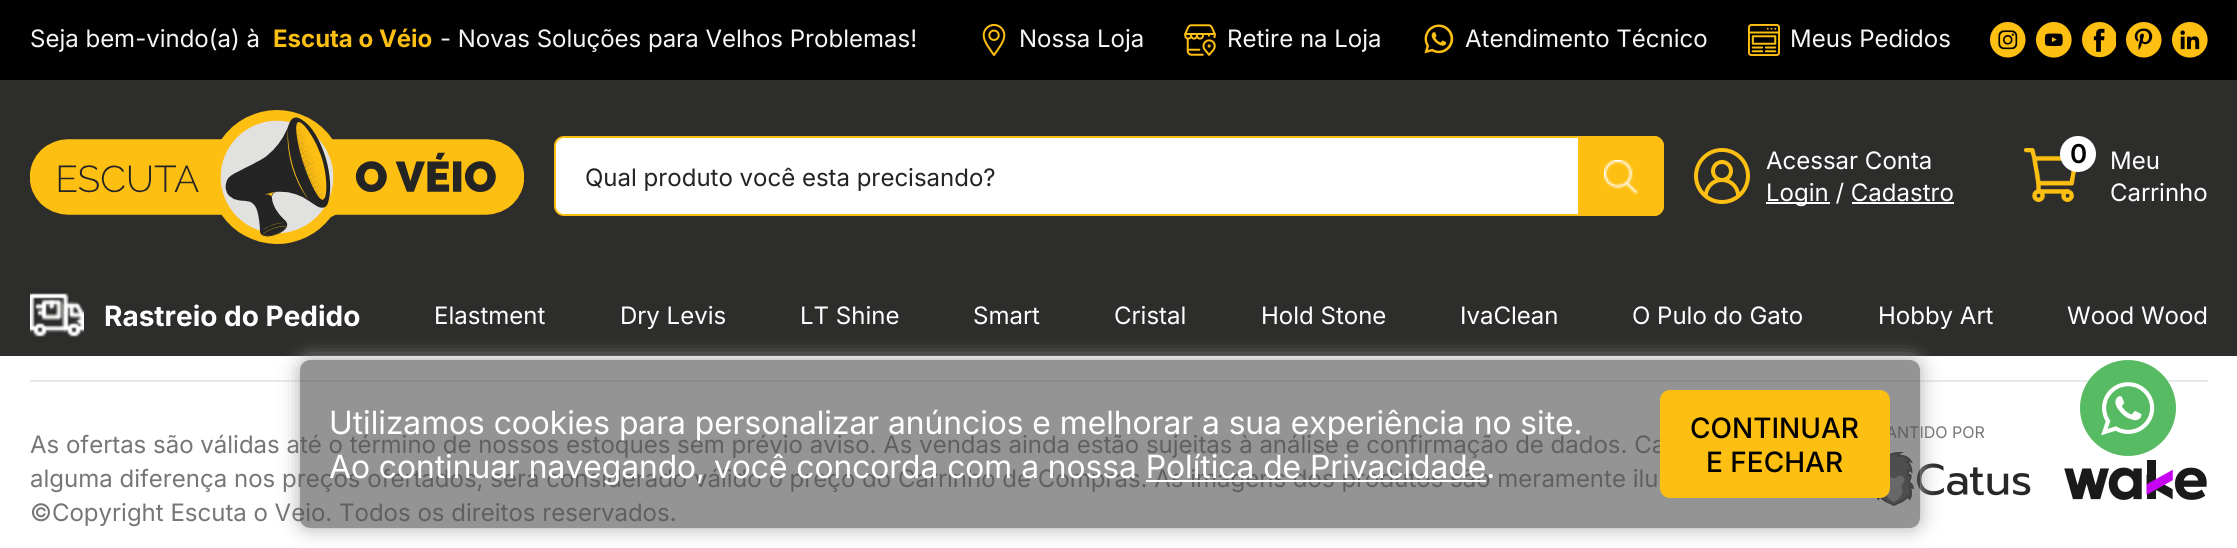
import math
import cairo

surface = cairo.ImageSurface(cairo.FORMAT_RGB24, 2237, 548)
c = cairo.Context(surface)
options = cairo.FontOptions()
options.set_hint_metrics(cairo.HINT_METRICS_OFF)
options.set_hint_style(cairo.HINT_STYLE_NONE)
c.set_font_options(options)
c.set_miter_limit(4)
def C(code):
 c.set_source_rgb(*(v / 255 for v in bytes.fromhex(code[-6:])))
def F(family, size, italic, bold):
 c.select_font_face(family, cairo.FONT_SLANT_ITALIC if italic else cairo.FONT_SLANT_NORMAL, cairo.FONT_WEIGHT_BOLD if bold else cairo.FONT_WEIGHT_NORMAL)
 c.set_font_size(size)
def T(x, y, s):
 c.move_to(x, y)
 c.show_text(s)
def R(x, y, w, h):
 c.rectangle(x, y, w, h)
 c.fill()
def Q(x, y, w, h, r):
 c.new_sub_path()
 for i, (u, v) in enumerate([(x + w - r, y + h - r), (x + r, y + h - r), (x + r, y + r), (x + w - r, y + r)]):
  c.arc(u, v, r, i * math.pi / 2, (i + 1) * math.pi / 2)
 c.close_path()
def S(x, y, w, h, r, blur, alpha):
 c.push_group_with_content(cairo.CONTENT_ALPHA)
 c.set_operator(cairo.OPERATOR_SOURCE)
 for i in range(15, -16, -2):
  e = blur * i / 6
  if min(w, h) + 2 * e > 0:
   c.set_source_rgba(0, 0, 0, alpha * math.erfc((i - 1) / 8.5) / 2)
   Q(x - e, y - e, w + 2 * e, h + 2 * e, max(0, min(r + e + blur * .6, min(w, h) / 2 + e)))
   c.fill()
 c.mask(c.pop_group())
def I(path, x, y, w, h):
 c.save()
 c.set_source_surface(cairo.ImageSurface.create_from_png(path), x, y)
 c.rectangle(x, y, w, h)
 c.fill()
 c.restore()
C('ffffff')
c.paint()
C('010101')
R(0,0,2237,80)
F('Inter',24,0,0)
C('f6f6f6')
T(30,47,'Seja bem-vindo(a) à')
F('Inter',24,0,1)
C('febf13')
T(273,47,'Escuta o Véio')
F('Inter',24,0,0)
C('f6f6f6')
T(440,47,'- Novas Soluções para Velhos Problemas!')
I('1.png',982,24,24,32)
T(1019,47,'Nossa Loja')
I('2.png',1184,24,32,32)
T(1227,47,'Retire na Loja')
I('3.png',1424,24,30,30)
T(1465,47,'Atendimento Técnico')
I('4.png',1748,24,32,32)
T(1790,47,'Meus Pedidos')
I('5.png',1990,22,36,36)
I('6.png',2036,22,36,36)
I('7.png',2082,22,34,36)
I('8.png',2126,22,36,36)
I('9.png',2172,22,36,36)
C('2d2d2b')
R(0,80,2237,276)
I('10.png',30,110,494,134)
C('ffffff')
Q(555,137,1108,78,9)
c.fill_preserve()
C('febf13')
c.stroke()
C('232323')
T(585,186,'Qual produto você esta precisando?')
C('febf13')
c.new_path()
c.move_to(1578,136)
c.line_to(1654,136)
c.curve_to(1659.5,136,1664,140.5,1664,146)
c.line_to(1664,206)
c.curve_to(1664,211.5,1659.5,216,1654,216)
c.line_to(1578,216)
c.close_path()
c.fill()
I('11.png',1604,160,34,34)
I('12.png',1694,148,56,56)
C('ffffff')
T(1766,169,'Acessar Conta')
R(1766,202,64,2)
T(1766,201,'Login / Cadastro')
R(1852,202,102,2)
I('13.png',2024,148,54,54)
c.arc(2078,154,18,0,2 * math.pi)
c.fill()
F('Inter SemiBold',26,0,0)
C('000000')
T(2070,163,'0')
F('Inter',24,0,0)
C('ffffff')
T(2110,169,'Meu')
T(2110,201,'Carrinho')
I('14.png',30,293,54,44)
F('Inter',28,0,1)
T(104,326,'Rastreio do Pedido')
F('Inter',24,0,0)
T(434,324,'Elastment')
T(620,324,'Dry Levis')
T(800,324,'LT Shine')
T(973,324,'Smart')
T(1114,324,'Cristal')
T(1261,324,'Hold Stone')
T(1460,324,'IvaClean')
T(1632,324,'O Pulo do Gato')
T(1878,324,'Hobby Art')
T(2067,324,'Wood Wood')
C('e8e8e8')
R(30,380,2178,2)
I('16.png',1876,452,155,54)
c.save()
c.set_fill_rule(cairo.FILL_RULE_EVEN_ODD)
c.new_path()
c.move_to(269,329)
c.line_to(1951,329)
c.line_to(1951,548)
c.line_to(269,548)
c.close_path()
c.move_to(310,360)
c.line_to(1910,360)
c.curve_to(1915.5,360,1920,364.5,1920,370)
c.line_to(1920,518)
c.curve_to(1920,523.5,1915.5,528,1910,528)
c.line_to(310,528)
c.curve_to(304.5,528,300,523.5,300,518)
c.line_to(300,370)
c.curve_to(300,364.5,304.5,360,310,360)
c.close_path()
c.clip()
C('aaaaaa')
S(300,360,1620,168,10,10,1)
c.restore()
F('Inter',16,0,0)
C('767676')
T(1886,438,'ANTIDO POR')
F('Inter',24,0,0)
T(30,453,'As ofertas são válidas até o término de nossos estoques sem prévio aviso. As vendas ainda estão sujeitas à análise e confirmação de dados. Ca')
T(30,487,'alguma diferença nos preços ofertados, será considerado válido o preço do Carrinho de Compras. As imagens dos produtos são meramente ilu')
T(30,521,'©Copyright Escuta o Veio. Todos os direitos reservados.')
c.set_source_rgba(0.325,0.325,0.325,0.62)
Q(300,360,1620,168,10)
c.fill()
F('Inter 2',32,0,0)
C('ffffff')
T(329,434,'Utilizamos cookies para personalizar anúncios e melhorar a sua experiência no site.')
T(329,478,'Ao continuar navegando, você concorda com a nossa Política de Privacidade.')
R(1146,480,340,2)
C('febf13')
Q(1660,390,230,108,10)
c.fill()
F('Inter Medium',28,0,0)
C('000000')
T(1690,438,'CONTINUAR')
T(1706,472,'E FECHAR')
I('15.png',2080,360,96,96)
I('17.png',2064,460,143,40)
surface.write_to_png('o.png')
